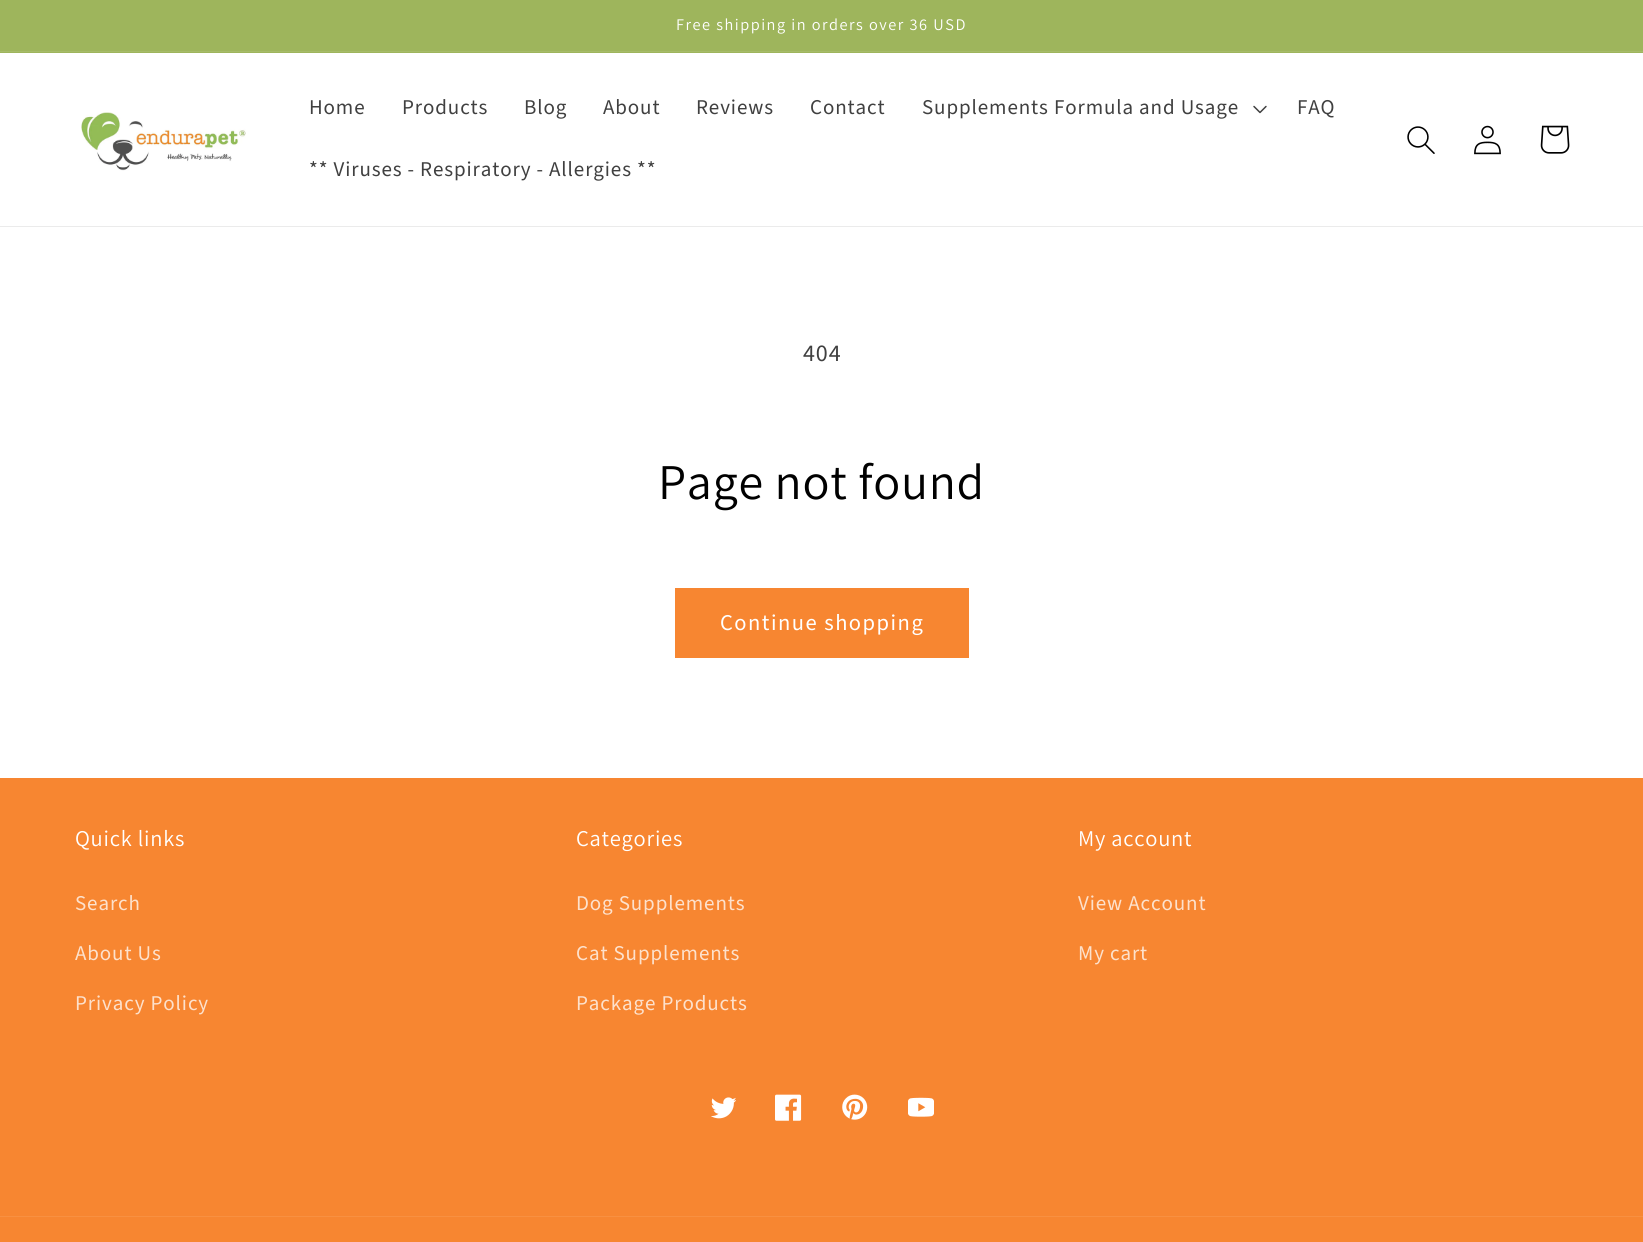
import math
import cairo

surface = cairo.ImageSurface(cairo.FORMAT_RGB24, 1643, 1242)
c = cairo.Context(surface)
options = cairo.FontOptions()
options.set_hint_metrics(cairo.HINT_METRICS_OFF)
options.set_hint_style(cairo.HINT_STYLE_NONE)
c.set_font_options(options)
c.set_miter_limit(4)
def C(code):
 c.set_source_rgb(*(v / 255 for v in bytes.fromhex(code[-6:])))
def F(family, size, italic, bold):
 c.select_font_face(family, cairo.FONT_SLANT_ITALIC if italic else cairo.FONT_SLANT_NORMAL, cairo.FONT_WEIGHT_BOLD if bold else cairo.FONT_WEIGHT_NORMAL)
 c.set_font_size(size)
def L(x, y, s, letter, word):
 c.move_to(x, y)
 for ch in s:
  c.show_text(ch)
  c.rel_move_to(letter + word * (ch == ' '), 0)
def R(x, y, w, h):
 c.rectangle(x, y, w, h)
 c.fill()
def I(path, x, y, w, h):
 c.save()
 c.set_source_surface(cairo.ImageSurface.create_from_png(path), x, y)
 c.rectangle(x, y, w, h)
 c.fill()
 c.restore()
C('ffffff')
c.paint()
C('9eb55c')
R(0,0,1643,53)
C('a6bb69')
R(0,51,1643,1)
F('Assistant',16.25,0,0)
C('ffffff')
L(676,30,'Free shipping in orders over 36 USD',1.5,0)
C('ebebeb')
R(0,226,1643,1)
I('1.png',81,112,165,59)
F('Source Sans Pro',21,0,0)
C('404040')
L(309,114,'Home',.9,0)
L(402,114,'Products',.9,0)
L(524,114,'Blog',.9,0)
L(603,114,'About',.9,0)
L(696,114,'Reviews',.9,0)
L(810,114,'Contact',.9,0)
L(922,114,'Supplements Formula and Usage',.9,0)
I('2.png',1253,105,14,9)
L(1297,114,'FAQ',.9,0)
L(309,176,'** Viruses - Respiratory - Allergies **',.9,0)
I('3.png',1407,126,28,28)
I('4.png',1474,125,27,30)
I('5.png',1540,125,30,29)
F('Source Sans Pro',24,0,0)
L(803,361,'404',.9,0)
F('Assistant',50,0,0)
C('000000')
L(658,499,'Page not found',.75,0)
C('f78631')
R(675,588,294,70)
F('Source Sans Pro',22.5,0,0)
C('ffffff')
L(720,630,'Continue shopping',1.5,0)
C('f78631')
R(0,778,1643,464)
F('Assistant',22.5,0,0)
C('ffffff')
L(75,846,'Quick links',.75,0)
F('Source Sans Pro',21,0,0)
C('fde1cc')
L(75,910,'Search',.9,0)
L(75,960,'About Us',.9,0)
L(75,1010,'Privacy Policy',.9,0)
F('Assistant',22.5,0,0)
C('ffffff')
L(576,846,'Categories',.75,0)
F('Source Sans Pro',21,0,0)
C('fde1cc')
L(576,910,'Dog Supplements',.9,0)
L(576,960,'Cat Supplements',.9,0)
L(576,1010,'Package Products',.9,0)
F('Assistant',22.5,0,0)
C('ffffff')
L(1078,846,'My account',.75,0)
F('Source Sans Pro',21,0,0)
C('fde1cc')
L(1078,910,'View Account',.9,0)
L(1078,960,'My cart',.9,0)
I('6.png',711,1097,25,22)
I('7.png',775,1094,27,27)
I('8.png',842,1094,26,26)
I('9.png',908,1097,26,20)
C('f89041')
R(0,1216,1643,1)
surface.write_to_png('o.png')
